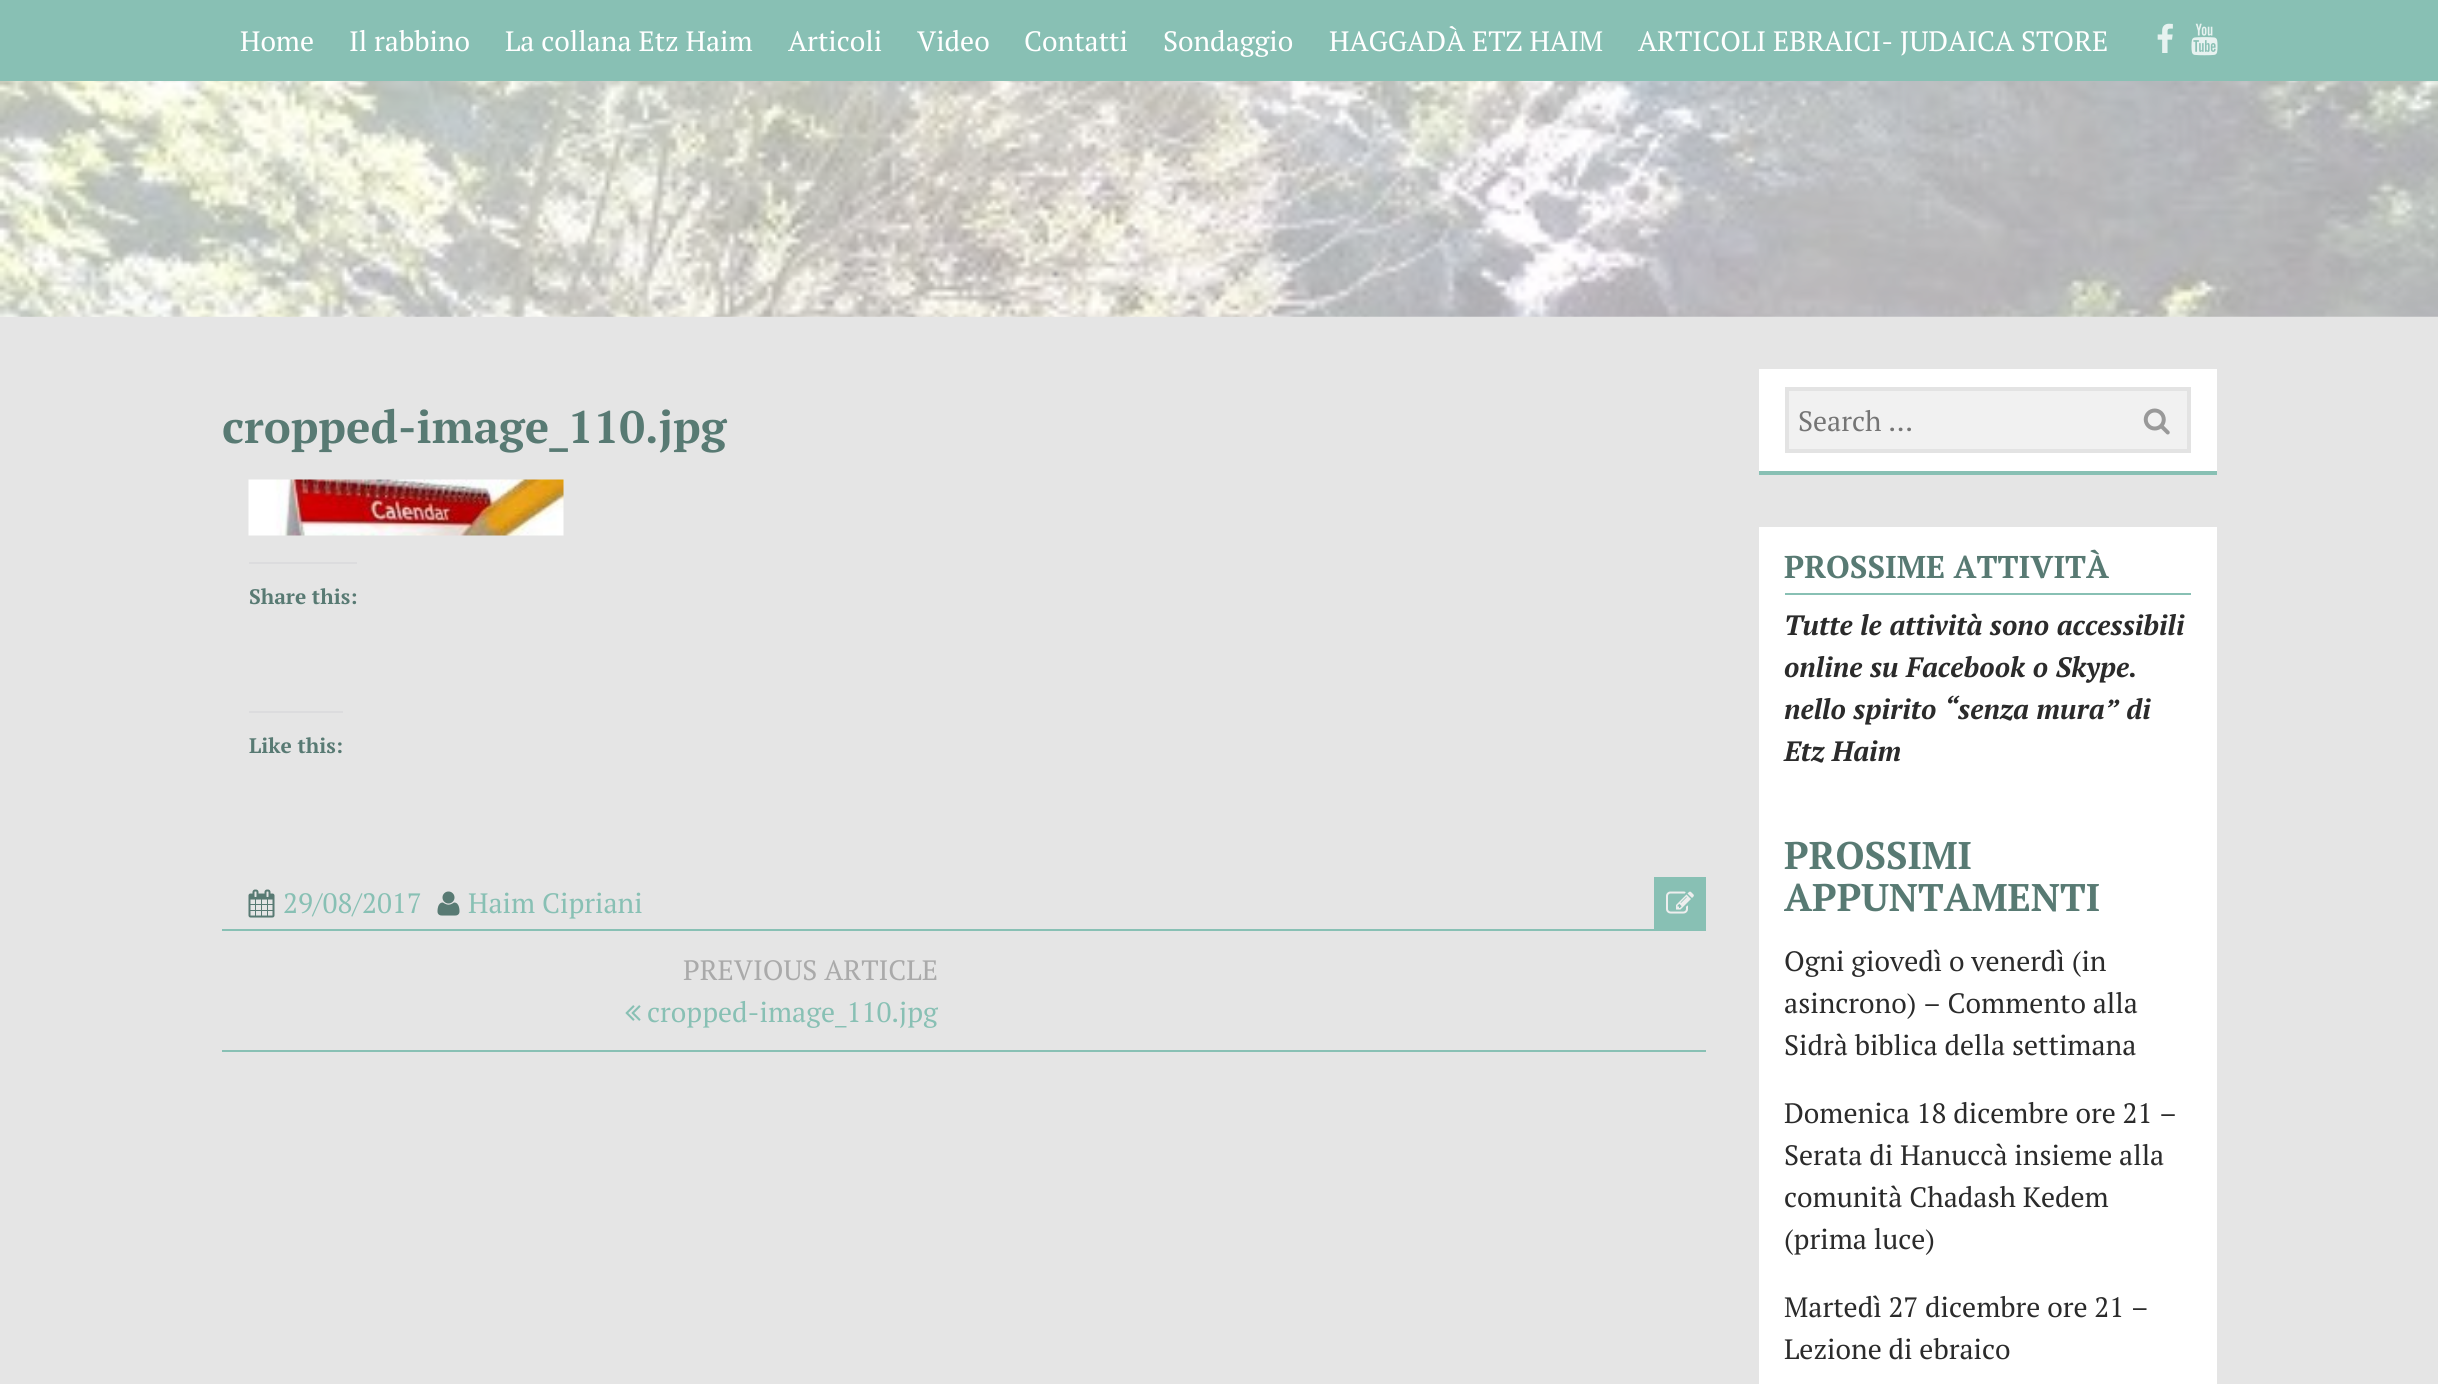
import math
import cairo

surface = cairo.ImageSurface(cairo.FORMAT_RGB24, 2438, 1384)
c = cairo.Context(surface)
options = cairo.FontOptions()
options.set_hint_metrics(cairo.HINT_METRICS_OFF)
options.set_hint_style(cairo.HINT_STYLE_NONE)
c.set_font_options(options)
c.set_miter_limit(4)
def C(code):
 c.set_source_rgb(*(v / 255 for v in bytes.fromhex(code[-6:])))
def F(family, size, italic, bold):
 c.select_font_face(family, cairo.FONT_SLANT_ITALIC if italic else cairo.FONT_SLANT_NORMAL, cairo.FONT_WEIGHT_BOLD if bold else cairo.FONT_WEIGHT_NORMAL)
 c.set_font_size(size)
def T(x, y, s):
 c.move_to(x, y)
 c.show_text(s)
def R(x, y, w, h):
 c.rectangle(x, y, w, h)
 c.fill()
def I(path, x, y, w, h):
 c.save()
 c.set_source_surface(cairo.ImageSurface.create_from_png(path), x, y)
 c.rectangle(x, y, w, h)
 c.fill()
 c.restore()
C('e5e5e5')
c.paint()
I('1.png',0,81,2438,236)
C('88c0b4')
R(0,0,2438,81)
F('PT Serif',28,0,0)
C('ffffff')
T(240,51,'Home')
T(349,51,'Il rabbino')
T(505,51,'La collana Etz Haim')
T(788,51,'Articoli')
T(917,51,'Video')
T(1024,51,'Contatti')
T(1163,51,'Sondaggio')
T(1329,51,'HAGGADÀ ETZ HAIM')
T(1638,51,'ARTICOLI EBRAICI- JUDAICA STORE')
I('2.png',2157,23,16,30)
I('3.png',2191,23,27,33)
F('PT Serif',45.5,0,1)
C('587a73')
T(222,443,'cropped-image_110.jpg')
I('4.png',248,479,316,57)
C('dcdcde')
R(249,562,108,2)
F('PT Serif',21,0,1)
C('587a73')
T(249,604,'Share this:')
C('dcdcde')
R(249,711,94,2)
C('587a73')
T(249,753,'Like this:')
I('5.png',248,889,27,29)
F('PT Serif',28,0,0)
C('88c0b4')
T(283,913,'29/08/2017')
I('6.png',437,891,23,25)
T(468,913,'Haim Cipriani')
R(1654,877,52,52)
I('7.png',1666,891,28,23)
R(222,929,1484,2)
R(222,1050,1484,2)
C('aaaaaa')
T(683,980,'PREVIOUS ARTICLE')
I('8.png',625,1005,16,16)
C('88c0b4')
T(647,1022,'cropped-image_110.jpg')
C('ffffff')
R(1759,369,458,102)
C('88c0b4')
R(1759,471,458,4)
C('f1f1f1')
c.rectangle(1787,389,402,62)
c.fill_preserve()
C('e3e3e3')
c.set_line_width(4)
c.stroke()
C('757575')
T(1798,431,'Search …')
I('9.png',2143,408,27,27)
C('ffffff')
R(1759,527,458,857)
C('88c0b4')
R(1785,593,406,2)
F('PT Serif',31.5,0,1)
C('587a73')
T(1784,578,'PROSSIME ATTIVITÀ')
F('PT Serif',28,1,1)
C('2b2b2b')
T(1784,635,'Tutte le attività sono accessibili')
T(1784,677,'online su Facebook o Skype.')
T(1784,719,'nello spirito “senza mura” di')
T(1784,761,'Etz Haim')
F('PT Serif',38.5,0,1)
C('587a73')
T(1784,869,'PROSSIMI')
T(1784,911,'APPUNTAMENTI')
F('PT Serif',28,0,0)
C('2b2b2b')
T(1784,971,'Ogni giovedì o venerdì (in')
T(1784,1013,'asincrono) – Commento alla')
T(1784,1055,'Sidrà biblica della settimana')
T(1784,1123,'Domenica 18 dicembre ore 21 –')
T(1784,1165,'Serata di Hanuccà insieme alla')
T(1784,1207,'comunità Chadash Kedem')
T(1784,1249,'(prima luce)')
T(1784,1317,'Martedì 27 dicembre ore 21 –')
T(1784,1359,'Lezione di ebraico')
surface.write_to_png('o.png')
